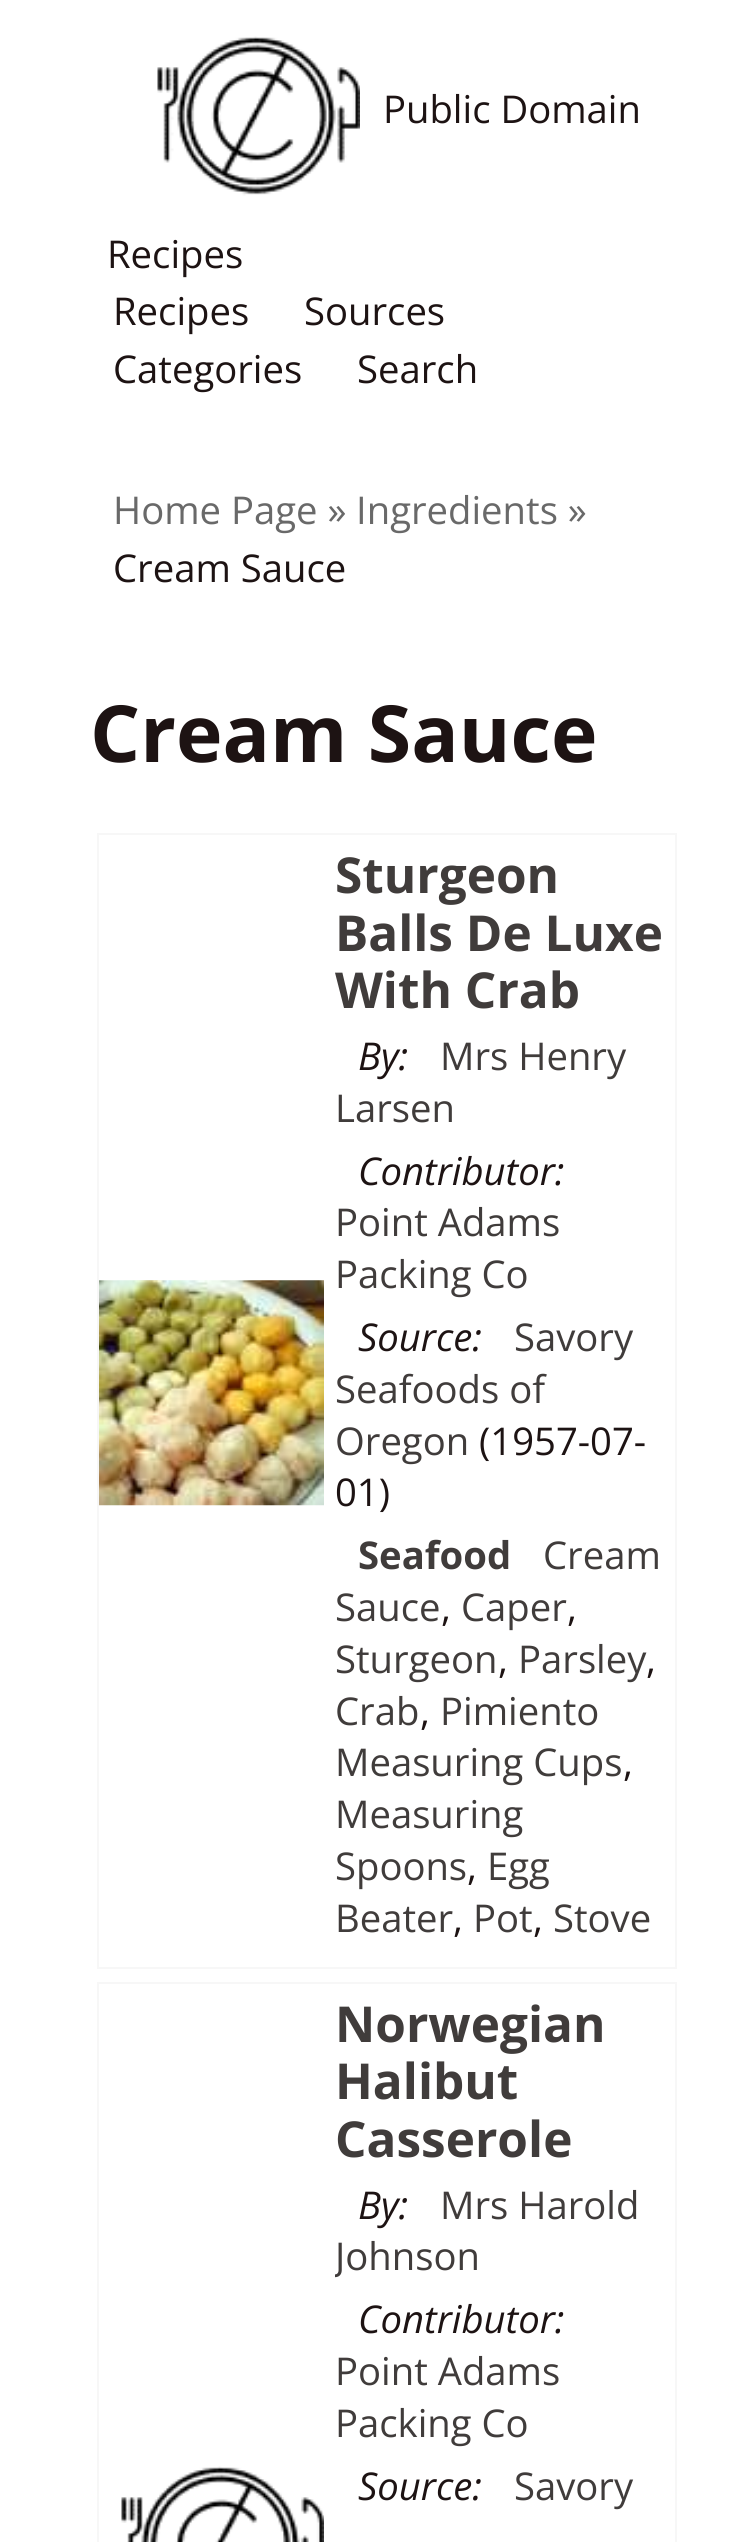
import math
import cairo

surface = cairo.ImageSurface(cairo.FORMAT_RGB24, 754, 2542)
c = cairo.Context(surface)
options = cairo.FontOptions()
options.set_hint_metrics(cairo.HINT_METRICS_OFF)
options.set_hint_style(cairo.HINT_STYLE_NONE)
c.set_font_options(options)
c.set_miter_limit(4)
def C(code):
 c.set_source_rgb(*(v / 255 for v in bytes.fromhex(code[-6:])))
def F(family, size, italic, bold):
 c.select_font_face(family, cairo.FONT_SLANT_ITALIC if italic else cairo.FONT_SLANT_NORMAL, cairo.FONT_WEIGHT_BOLD if bold else cairo.FONT_WEIGHT_NORMAL)
 c.set_font_size(size)
def T(x, y, s):
 c.move_to(x, y)
 c.show_text(s)
def I(path, x, y, w, h):
 c.save()
 c.set_source_surface(cairo.ImageSurface.create_from_png(path), x, y)
 c.rectangle(x, y, w, h)
 c.fill()
 c.restore()
C('ffffff')
c.paint()
I('1.png',157,36,203,160)
F('Open Sans',38.25,0,0)
C('1d1313')
T(383,123,'Public Domain')
T(107,268,'Recipes')
T(113,325,'Recipes')
T(304,325,'Sources')
T(113,383,'Categories')
T(357,383,'Search')
C('696969')
T(113,524,'Home Page »')
T(356,524,'Ingredients »')
C('1d1313')
T(113,582,'Cream Sauce')
F('Open Sans',78.75,0,1)
T(90,762,'Cream Sauce')
c.rectangle(98,834,578,1134)
C('f7f7f7')
c.stroke()
I('2.png',99,1280,225,226)
F('Open Sans',49.5,0,1)
C('403c3b')
T(335,893,'Sturgeon')
T(335,951,'Balls De Luxe')
T(335,1008,'With Crab')
F('Open Sans',38.25,1,0)
C('1d1313')
T(358,1070,'By:')
F('Open Sans',38.25,0,0)
C('403c3b')
T(440,1070,'Mrs Henry')
T(335,1122,'Larsen')
F('Open Sans',38.25,1,0)
C('1d1313')
T(358,1185,'Contributor:')
F('Open Sans',38.25,0,0)
C('403c3b')
T(335,1236,'Point Adams')
T(335,1288,'Packing Co')
F('Open Sans',38.25,1,0)
C('1d1313')
T(358,1351,'Source:')
F('Open Sans',38.25,0,0)
C('403c3b')
T(514,1351,'Savory')
T(335,1403,'Seafoods of')
T(335,1455,'Oregon')
C('1d1313')
T(479,1455,'(1957-07-')
T(335,1506,'01)')
F('Open Sans',38.25,0,1)
C('403c3b')
T(358,1569,'Seafood')
F('Open Sans',38.25,0,0)
T(543,1569,'Cream')
T(335,1621,'Sauce')
C('1d1313')
T(441,1621,',')
C('403c3b')
T(461,1621,'Caper')
C('1d1313')
T(567,1621,',')
C('403c3b')
T(335,1673,'Sturgeon')
C('1d1313')
T(498,1673,',')
C('403c3b')
T(518,1673,'Parsley')
C('1d1313')
T(646,1673,',')
C('403c3b')
T(335,1725,'Crab')
C('1d1313')
T(420,1725,',')
C('403c3b')
T(440,1725,'Pimiento')
T(335,1776,'Measuring Cups')
C('1d1313')
T(623,1776,',')
C('403c3b')
T(335,1828,'Measuring')
T(335,1880,'Spoons')
C('1d1313')
T(467,1880,',')
C('403c3b')
T(487,1880,'Egg')
T(335,1932,'Beater')
C('1d1313')
T(453,1932,',')
C('403c3b')
T(473,1932,'Pot')
C('1d1313')
T(533,1932,',')
C('403c3b')
T(553,1932,'Stove')
c.rectangle(98,1983,578,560)
C('f7f7f7')
c.stroke()
I('3.png',121,2466,203,76)
F('Open Sans',49.5,0,1)
C('403c3b')
T(335,2042,'Norwegian')
T(335,2099,'Halibut')
T(335,2157,'Casserole')
F('Open Sans',38.25,1,0)
C('1d1313')
T(358,2219,'By:')
F('Open Sans',38.25,0,0)
C('403c3b')
T(440,2219,'Mrs Harold')
c.save()
c.rectangle(335,2178,329,104)
c.clip()
T(335,2270,'Johnson')
c.restore()
F('Open Sans',38.25,1,0)
C('1d1313')
T(358,2333,'Contributor:')
F('Open Sans',38.25,0,0)
C('403c3b')
T(335,2385,'Point Adams')
T(335,2437,'Packing Co')
F('Open Sans',38.25,1,0)
C('1d1313')
T(358,2500,'Source:')
F('Open Sans',38.25,0,0)
C('403c3b')
T(514,2500,'Savory')
surface.write_to_png('o.png')
